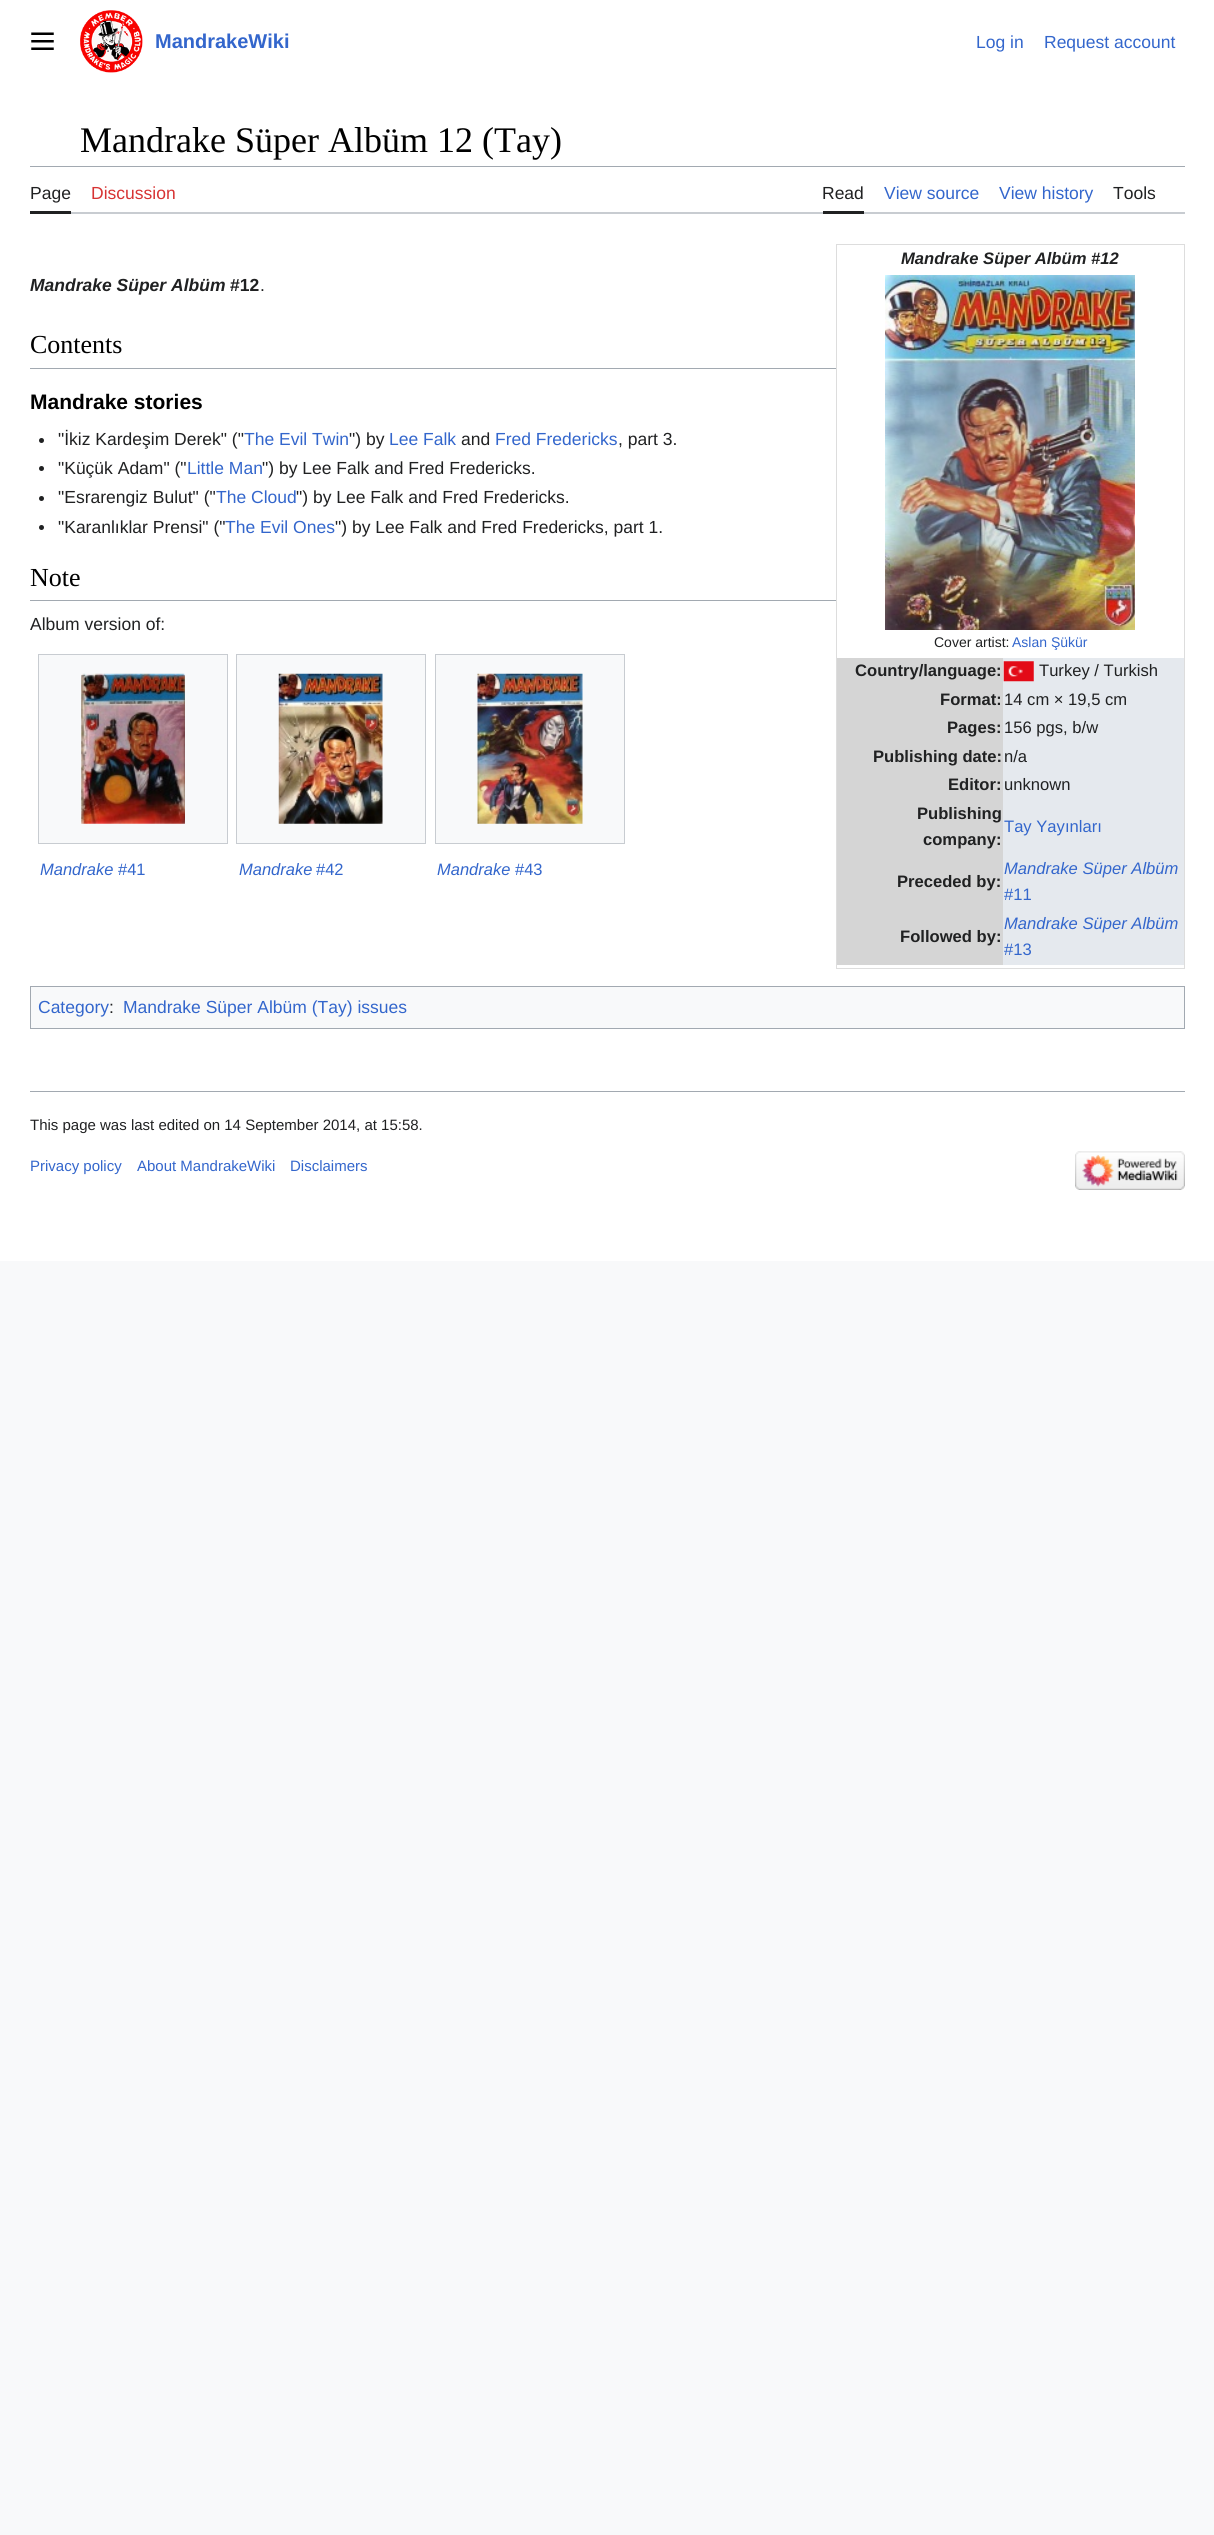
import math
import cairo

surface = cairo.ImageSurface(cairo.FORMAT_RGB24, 1214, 2535)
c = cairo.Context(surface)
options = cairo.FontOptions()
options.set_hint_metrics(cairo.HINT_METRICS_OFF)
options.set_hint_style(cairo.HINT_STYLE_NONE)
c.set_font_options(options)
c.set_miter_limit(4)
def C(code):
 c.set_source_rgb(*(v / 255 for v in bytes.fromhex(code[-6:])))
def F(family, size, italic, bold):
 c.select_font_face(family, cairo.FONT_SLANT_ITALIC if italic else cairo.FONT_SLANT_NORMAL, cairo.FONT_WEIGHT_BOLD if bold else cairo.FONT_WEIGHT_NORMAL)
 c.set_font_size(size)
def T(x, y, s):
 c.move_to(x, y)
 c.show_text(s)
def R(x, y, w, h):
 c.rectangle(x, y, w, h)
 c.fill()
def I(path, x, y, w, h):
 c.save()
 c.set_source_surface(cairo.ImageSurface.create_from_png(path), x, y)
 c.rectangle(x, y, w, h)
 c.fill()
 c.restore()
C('f8f9fa')
c.paint()
C('ffffff')
R(0,0,1214,1261)
I('1.png',31,32,23,18)
I('2.png',80,10,63,63)
F('Liberation Sans',20,0,1)
C('3366cc')
T(155,48,'MandrakeWiki')
F('Liberation Sans',17.5,0,0)
T(976,48,'Log in')
T(1044,48,'Request account')
F('Liberation Serif',36,0,0)
C('000000')
T(80,152,'Mandrake Süper Albüm 12 (Tay)')
C('a2a9b1')
R(30,166,1155,1)
C('c8ccd1')
R(71,212,1114,2)
C('202122')
R(30,211,41,3)
F('Liberation Sans',17.5,0,0)
T(30,199,'Page')
C('d73333')
T(91,199,'Discussion')
C('202122')
R(823,211,41,3)
T(822,199,'Read')
C('3366cc')
T(884,199,'View source')
T(999,199,'View history')
C('202122')
T(1113,199,'Tools')
F('Liberation Sans',17.5,1,1)
T(30,291,'Mandrake Süper Albüm')
F('Liberation Sans',17.5,0,1)
T(230,291,'#12')
F('Liberation Sans',17.5,0,0)
T(260,291,'.')
C('dddddd')
R(836,244,349,1)
R(1184,244,1,725)
R(836,968,349,1)
R(836,244,1,725)
F('Liberation Sans',16.6,1,1)
C('202122')
T(901,264,'Mandrake Süper Albüm #12')
I('3.png',885,275,250,355)
F('Liberation Sans',14,0,0)
T(934,647,'Cover artist:')
C('3366cc')
T(1012,647,'Aslan Şükür')
C('d5d5d5')
R(837,658,166,307)
F('Liberation Sans',16.6,0,1)
C('202122')
T(855,676,'Country/language:')
C('e5e9ee')
R(1003,658,181,307)
I('4.png',1003,661,31,21)
F('Liberation Sans',16.6,0,0)
C('202122')
T(1039,676,'Turkey / Turkish')
F('Liberation Sans',16.6,0,1)
T(940,705,'Format:')
F('Liberation Sans',16.6,0,0)
T(1004,705,'14 cm × 19,5 cm')
F('Liberation Sans',16.6,0,1)
T(947,733,'Pages:')
F('Liberation Sans',16.6,0,0)
T(1004,733,'156 pgs, b/w')
F('Liberation Sans',16.6,0,1)
T(873,762,'Publishing date:')
F('Liberation Sans',16.6,0,0)
T(1004,762,'n/a')
F('Liberation Sans',16.6,0,1)
T(948,790,'Editor:')
F('Liberation Sans',16.6,0,0)
T(1004,790,'unknown')
F('Liberation Sans',16.6,0,1)
T(917,819,'Publishing')
T(923,845,'company:')
F('Liberation Sans',16.6,0,0)
C('3366cc')
T(1004,832,'Tay Yayınları')
F('Liberation Sans',16.6,0,1)
C('202122')
T(897,887,'Preceded by:')
F('Liberation Sans',16.6,1,0)
C('3366cc')
T(1004,874,'Mandrake Süper Albüm')
F('Liberation Sans',16.6,0,0)
T(1004,900,'#11')
F('Liberation Sans',16.6,0,1)
C('202122')
T(900,942,'Followed by:')
F('Liberation Sans',16.6,1,0)
C('3366cc')
T(1004,929,'Mandrake Süper Albüm')
F('Liberation Sans',16.6,0,0)
T(1004,955,'#13')
C('a2a9b1')
R(30,368,806,1)
F('Liberation Serif',26,0,0)
C('000000')
T(30,353,'Contents')
F('Liberation Sans',21,0,1)
T(30,409,'Mandrake stories')
C('202122')
c.new_path()
c.arc(41.5,440.5,2.5,0,2 * math.pi)
c.fill()
F('Liberation Sans',17.5,0,0)
T(58,445,'"İkiz Kardeşim Derek" ("')
C('3366cc')
T(244,445,'The Evil Twin')
C('202122')
T(349,445,'") by')
C('3366cc')
T(389,445,'Lee Falk')
C('202122')
T(461,445,'and')
C('3366cc')
T(495,445,'Fred Fredericks')
C('202122')
T(618,445,', part 3.')
c.new_path()
c.arc(41.5,468.5,2.5,0,2 * math.pi)
c.fill()
T(58,474,'"Küçük Adam" ("')
C('3366cc')
T(187,474,'Little Man')
C('202122')
T(262,474,'") by Lee Falk and Fred Fredericks.')
c.new_path()
c.arc(41.5,498.5,2.5,0,2 * math.pi)
c.fill()
T(58,503,'"Esrarengiz Bulut" ("')
C('3366cc')
T(216,503,'The Cloud')
C('202122')
T(296,503,'") by Lee Falk and Fred Fredericks.')
c.new_path()
c.arc(41.5,527.5,2.5,0,2 * math.pi)
c.fill()
T(58,533,'"Karanlıklar Prensi" ("')
C('3366cc')
T(225,533,'The Evil Ones')
C('202122')
T(335,533,'") by Lee Falk and Fred Fredericks, part 1.')
C('a2a9b1')
R(30,600,806,1)
F('Liberation Serif',26,0,0)
C('000000')
T(30,586,'Note')
F('Liberation Sans',17.5,0,0)
C('202122')
T(30,630,'Album version of:')
C('f8f9fa')
c.rectangle(38.5,654.5,189,189)
c.fill_preserve()
C('c8ccd1')
c.set_line_width(1)
c.stroke()
I('5.png',81,673,104,151)
F('Liberation Sans',16.5,1,0)
C('3366cc')
T(40,875,'Mandrake')
F('Liberation Sans',16.5,0,0)
T(118,875,'#41')
C('f8f9fa')
c.rectangle(236.5,654.5,189,189)
c.fill_preserve()
C('c8ccd1')
c.stroke()
I('6.png',278,673,105,151)
F('Liberation Sans',16.5,1,0)
C('3366cc')
T(239,875,'Mandrake')
F('Liberation Sans',16.5,0,0)
T(316,875,'#42')
C('f8f9fa')
c.rectangle(435.5,654.5,189,189)
c.fill_preserve()
C('c8ccd1')
c.stroke()
I('7.png',477,673,106,151)
F('Liberation Sans',16.5,1,0)
C('3366cc')
T(437,875,'Mandrake')
F('Liberation Sans',16.5,0,0)
T(515,875,'#43')
C('f8f9fa')
c.rectangle(30.5,986.5,1154,42)
c.fill_preserve()
C('a2a9b1')
c.stroke()
F('Liberation Sans',17.5,0,0)
C('3366cc')
T(38,1013,'Category')
C('202122')
T(109,1013,':')
C('3366cc')
T(123,1013,'Mandrake Süper Albüm (Tay) issues')
C('a2a9b1')
R(30,1091,1155,1)
F('Liberation Sans',15,0,0)
C('202122')
T(30,1130,'This page was last edited on 14 September 2014, at 15:58.')
C('3366cc')
T(30,1171,'Privacy policy')
T(137,1171,'About MandrakeWiki')
T(290,1171,'Disclaimers')
I('8.png',1075,1151,110,39)
surface.write_to_png('o.png')
